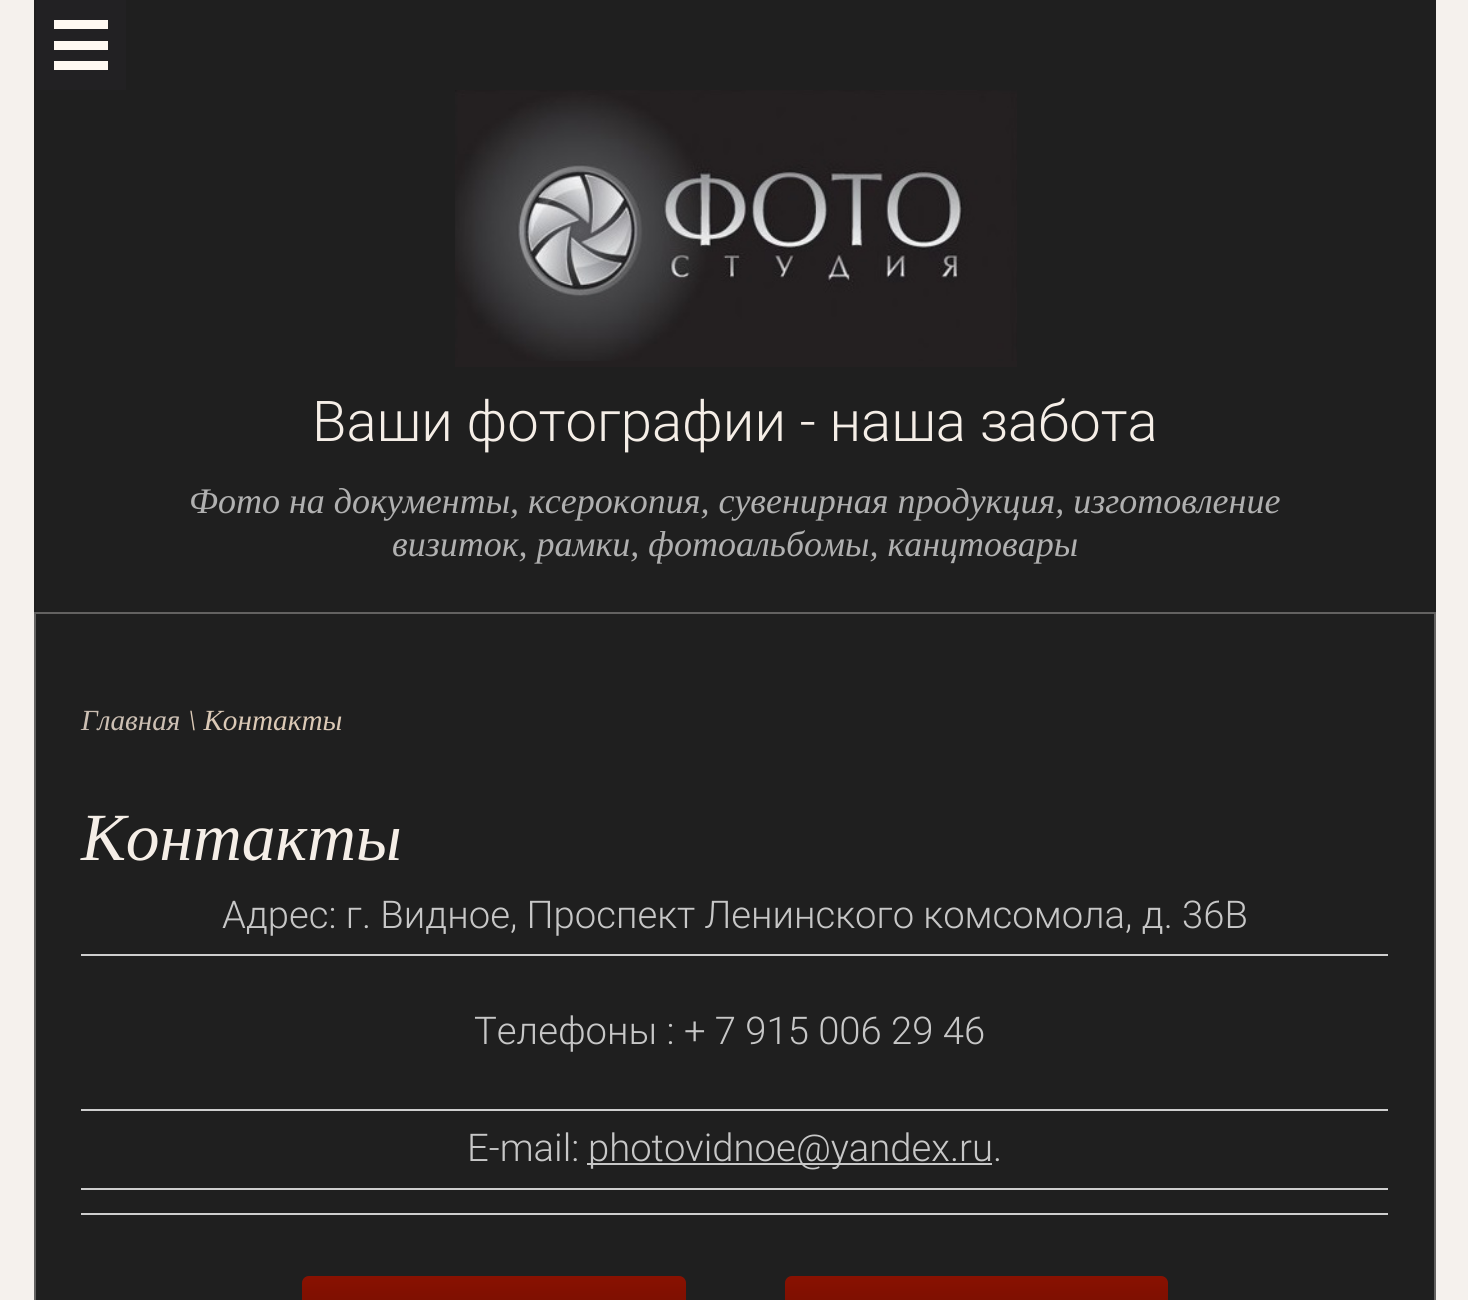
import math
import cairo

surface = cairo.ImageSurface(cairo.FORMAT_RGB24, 1468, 1300)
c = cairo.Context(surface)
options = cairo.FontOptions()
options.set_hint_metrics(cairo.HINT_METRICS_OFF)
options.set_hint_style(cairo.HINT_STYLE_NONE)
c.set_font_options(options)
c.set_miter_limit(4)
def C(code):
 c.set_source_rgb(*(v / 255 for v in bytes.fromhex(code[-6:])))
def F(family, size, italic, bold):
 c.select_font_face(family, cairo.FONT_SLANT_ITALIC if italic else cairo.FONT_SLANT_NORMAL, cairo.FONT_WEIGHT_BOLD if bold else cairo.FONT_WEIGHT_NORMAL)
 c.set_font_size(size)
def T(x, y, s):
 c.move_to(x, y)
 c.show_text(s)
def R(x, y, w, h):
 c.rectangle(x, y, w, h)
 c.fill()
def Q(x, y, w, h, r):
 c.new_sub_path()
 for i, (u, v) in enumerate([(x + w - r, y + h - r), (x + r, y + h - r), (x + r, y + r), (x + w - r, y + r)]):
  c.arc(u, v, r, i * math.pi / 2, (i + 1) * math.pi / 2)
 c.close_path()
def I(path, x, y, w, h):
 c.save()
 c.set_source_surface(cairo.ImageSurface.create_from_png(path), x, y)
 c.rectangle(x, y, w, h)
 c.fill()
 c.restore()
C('f5f1ed')
c.paint()
C('1f1f1f')
R(34,0,1402,1300)
C('222123')
R(36,0,90,90)
C('fff9f2')
R(54,20,54,9)
R(54,41,54,9)
R(54,61,54,9)
C('242021')
R(455,361,562,6)
I('1.png',455,90,562,271)
F('Roboto Light',56.25,0,0)
C('f5eee7')
T(312,441,'Ваши фотографии - наша забота')
F('Liberation Serif',36,1,0)
C('b0b0b0')
T(189,513,'Фото на документы, ксерокопия, сувенирная продукция, изготовление')
T(392,556,'визиток, рамки, фотоальбомы, канцтовары')
c.rectangle(35,613,1400,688)
C('636261')
c.stroke()
F('Liberation Serif',29.25,1,0)
C('ccbfb3')
T(81,730,'Главная')
C('dbc9b6')
T(188,730,'\\ Контакты')
F('Liberation Serif',67.5,1,0)
C('f5eee7')
T(81,860,'Контакты')
C('cecece')
R(81,954,1307,2)
F('Roboto Light',38.25,0,0)
C('c7c7c7')
T(222,928,'Адрес: г. Видное, Проспект Ленинского комсомола, д. 36В')
C('cecece')
R(81,1109,1307,2)
C('c7c7c7')
T(474,1044,'Телефоны : + 7 915 006 29 46')
C('cecece')
R(81,1188,1307,2)
C('c7c7c7')
T(467,1161,'E-mail:')
R(587,1163,405,2)
T(588,1161,'photovidnoe@yandex.ru.')
C('cecece')
R(81,1213,1307,2)
gradient = cairo.LinearGradient(494,1276,494,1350)
gradient.add_color_stop_rgba(0,0.537,0.067,0.004,1)
gradient.add_color_stop_rgba(1,0.412,0.051,0.004,1)
c.set_source(gradient)
Q(302,1276,384,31,7)
c.fill()
gradient = cairo.LinearGradient(977,1276,977,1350)
gradient.add_color_stop_rgba(0,0.537,0.067,0.004,1)
gradient.add_color_stop_rgba(1,0.412,0.051,0.004,1)
c.set_source(gradient)
Q(785,1276,383,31,7)
c.fill()
surface.write_to_png('o.png')
